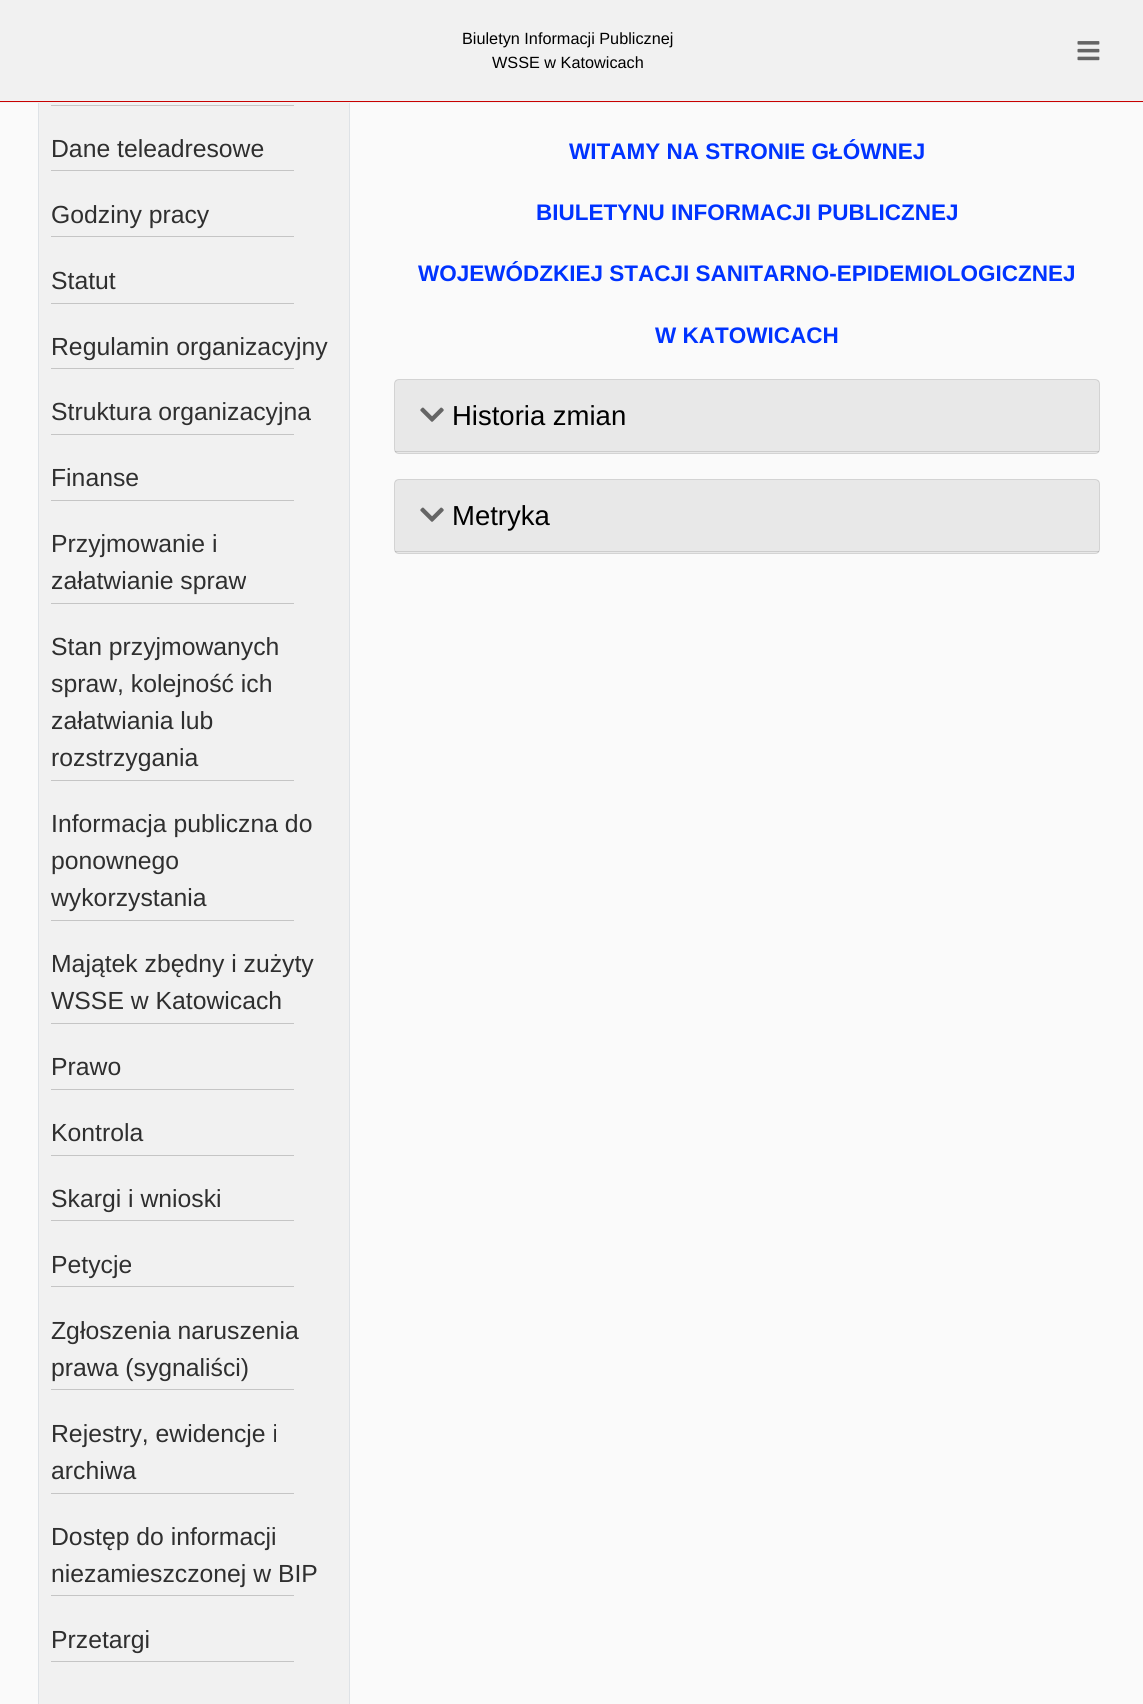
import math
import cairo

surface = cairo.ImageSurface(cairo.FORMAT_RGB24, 1143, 1704)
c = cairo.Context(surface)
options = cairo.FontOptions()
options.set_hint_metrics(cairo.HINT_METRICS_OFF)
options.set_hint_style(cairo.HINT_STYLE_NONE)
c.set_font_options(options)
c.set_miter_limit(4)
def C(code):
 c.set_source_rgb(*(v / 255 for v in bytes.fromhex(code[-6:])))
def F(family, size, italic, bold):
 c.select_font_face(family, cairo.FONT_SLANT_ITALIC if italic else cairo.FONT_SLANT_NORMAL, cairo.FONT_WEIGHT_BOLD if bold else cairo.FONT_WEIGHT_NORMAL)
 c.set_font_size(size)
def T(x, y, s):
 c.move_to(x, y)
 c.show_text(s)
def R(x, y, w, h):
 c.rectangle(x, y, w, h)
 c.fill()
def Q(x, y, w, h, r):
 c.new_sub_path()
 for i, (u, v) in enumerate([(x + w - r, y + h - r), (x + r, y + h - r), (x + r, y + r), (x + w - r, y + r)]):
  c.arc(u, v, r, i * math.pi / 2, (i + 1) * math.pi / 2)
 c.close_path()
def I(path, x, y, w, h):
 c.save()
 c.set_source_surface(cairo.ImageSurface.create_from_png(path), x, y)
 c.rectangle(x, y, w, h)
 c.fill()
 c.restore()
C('fafafa')
c.paint()
C('f1f1f1')
R(39,103,310,1601)
c.rectangle(38.5,-.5,311,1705)
C('dee2e6')
c.set_line_width(1)
c.stroke()
C('f1f1f1')
R(0,0,1143,103)
C('c80000')
R(0,101,1143,1)
F('Liberation Sans',16.25,0,0)
C('000000')
T(462,44,'Biuletyn Informacji Publicznej')
T(492,68,'WSSE w Katowicach')
I('1.png',1077,41,23,20)
C('c5c5c5')
R(51,105,243,1)
F('Liberation Sans',24.75,0,0)
C('2f2f2f')
T(51,157,'Dane teleadresowe')
C('c5c5c5')
R(51,170,243,1)
C('2f2f2f')
T(51,223,'Godziny pracy')
C('c5c5c5')
R(51,236,243,1)
C('2f2f2f')
T(51,289,'Statut')
C('c5c5c5')
R(51,303,243,1)
C('2f2f2f')
T(51,355,'Regulamin organizacyjny')
C('c5c5c5')
R(51,368,243,1)
C('2f2f2f')
T(51,420,'Struktura organizacyjna')
C('c5c5c5')
R(51,434,243,1)
C('2f2f2f')
T(51,486,'Finanse')
C('c5c5c5')
R(51,500,243,1)
C('2f2f2f')
T(51,552,'Przyjmowanie i')
T(51,589,'załatwianie spraw')
C('c5c5c5')
R(51,603,243,1)
C('2f2f2f')
T(51,655,'Stan przyjmowanych')
T(51,692,'spraw, kolejność ich')
T(51,729,'załatwiania lub')
T(51,766,'rozstrzygania')
C('c5c5c5')
R(51,780,243,1)
C('2f2f2f')
T(51,832,'Informacja publiczna do')
T(51,869,'ponownego')
T(51,906,'wykorzystania')
C('c5c5c5')
R(51,920,243,1)
C('2f2f2f')
T(51,972,'Majątek zbędny i zużyty')
T(51,1009,'WSSE w Katowicach')
C('c5c5c5')
R(51,1023,243,1)
C('2f2f2f')
T(51,1075,'Prawo')
C('c5c5c5')
R(51,1089,243,1)
C('2f2f2f')
T(51,1141,'Kontrola')
C('c5c5c5')
R(51,1155,243,1)
C('2f2f2f')
T(51,1207,'Skargi i wnioski')
C('c5c5c5')
R(51,1220,243,1)
C('2f2f2f')
T(51,1273,'Petycje')
C('c5c5c5')
R(51,1286,243,1)
C('2f2f2f')
T(51,1339,'Zgłoszenia naruszenia')
T(51,1376,'prawa (sygnaliści)')
C('c5c5c5')
R(51,1389,243,1)
C('2f2f2f')
T(51,1442,'Rejestry, ewidencje i')
T(51,1479,'archiwa')
C('c5c5c5')
R(51,1493,243,1)
C('2f2f2f')
T(51,1545,'Dostęp do informacji')
T(51,1582,'niezamieszczonej w BIP')
C('c5c5c5')
R(51,1595,243,1)
C('2f2f2f')
T(51,1648,'Przetargi')
C('c5c5c5')
R(51,1661,243,1)
F('Liberation Sans',22.5,0,1)
C('0033ff')
T(569,159,'WITAMY NA STRONIE GŁÓWNEJ')
T(536,220,'BIULETYNU INFORMACJI PUBLICZNEJ')
T(418,281,'WOJEWÓDZKIEJ STACJI SANITARNO-EPIDEMIOLOGICZNEJ')
T(655,343,'W KATOWICACH')
C('efefef')
Q(394,379,706,75,5)
c.fill()
Q(394.5,379.5,705,74,4.5)
c.set_source_rgba(0,0,0,0.12)
c.stroke()
c.set_source_rgba(0,0,0,0.03)
R(395,380,704,73)
c.set_source_rgba(0,0,0,0.12)
R(395,451,704,1)
I('2.png',420,407,24,15)
F('Liberation Sans',27.5,0,0)
C('000000')
T(452,425,'Historia zmian')
C('efefef')
Q(394,479,706,75,5)
c.fill()
Q(394.5,479.5,705,74,4.5)
c.set_source_rgba(0,0,0,0.12)
c.stroke()
c.set_source_rgba(0,0,0,0.03)
R(395,480,704,73)
c.set_source_rgba(0,0,0,0.12)
R(395,551,704,1)
I('2.png',420,507,24,15)
C('000000')
T(452,525,'Metryka')
surface.write_to_png('o.png')
